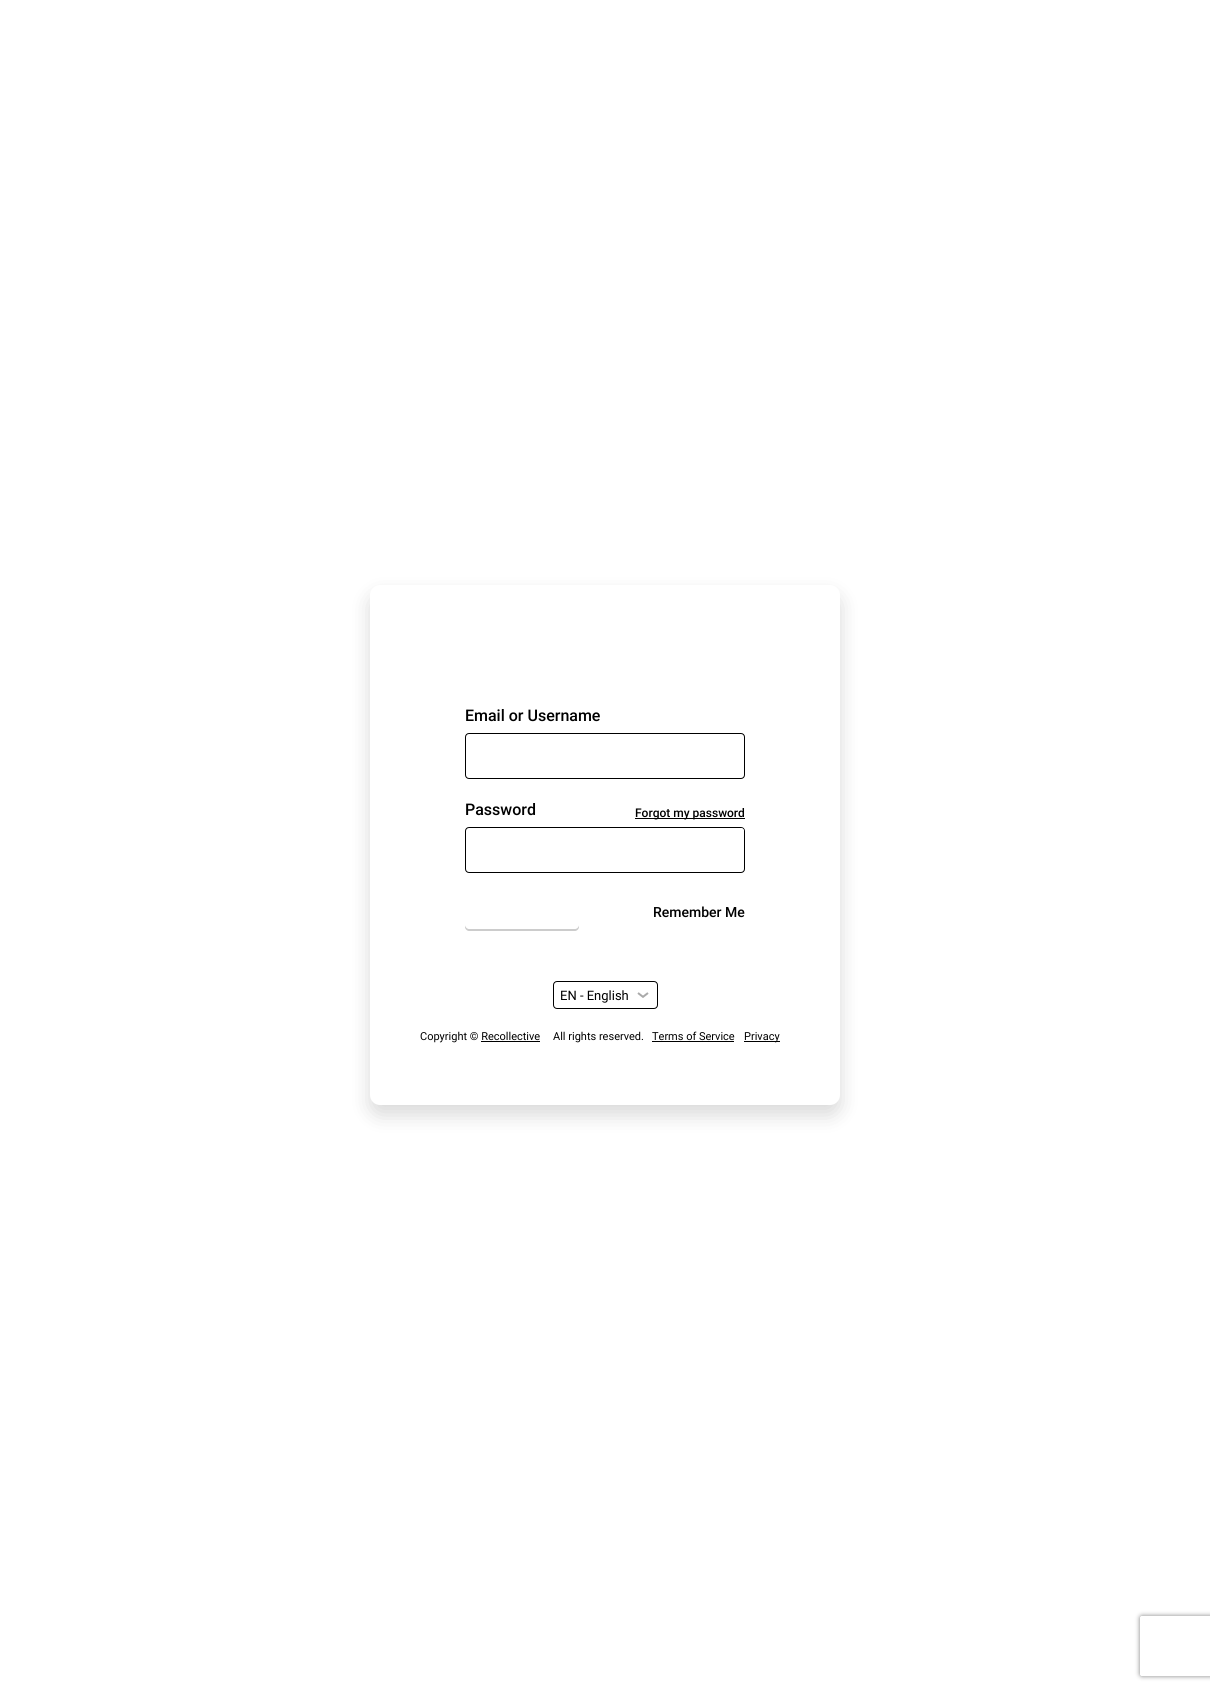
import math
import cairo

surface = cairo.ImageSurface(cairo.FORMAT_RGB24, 1210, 1690)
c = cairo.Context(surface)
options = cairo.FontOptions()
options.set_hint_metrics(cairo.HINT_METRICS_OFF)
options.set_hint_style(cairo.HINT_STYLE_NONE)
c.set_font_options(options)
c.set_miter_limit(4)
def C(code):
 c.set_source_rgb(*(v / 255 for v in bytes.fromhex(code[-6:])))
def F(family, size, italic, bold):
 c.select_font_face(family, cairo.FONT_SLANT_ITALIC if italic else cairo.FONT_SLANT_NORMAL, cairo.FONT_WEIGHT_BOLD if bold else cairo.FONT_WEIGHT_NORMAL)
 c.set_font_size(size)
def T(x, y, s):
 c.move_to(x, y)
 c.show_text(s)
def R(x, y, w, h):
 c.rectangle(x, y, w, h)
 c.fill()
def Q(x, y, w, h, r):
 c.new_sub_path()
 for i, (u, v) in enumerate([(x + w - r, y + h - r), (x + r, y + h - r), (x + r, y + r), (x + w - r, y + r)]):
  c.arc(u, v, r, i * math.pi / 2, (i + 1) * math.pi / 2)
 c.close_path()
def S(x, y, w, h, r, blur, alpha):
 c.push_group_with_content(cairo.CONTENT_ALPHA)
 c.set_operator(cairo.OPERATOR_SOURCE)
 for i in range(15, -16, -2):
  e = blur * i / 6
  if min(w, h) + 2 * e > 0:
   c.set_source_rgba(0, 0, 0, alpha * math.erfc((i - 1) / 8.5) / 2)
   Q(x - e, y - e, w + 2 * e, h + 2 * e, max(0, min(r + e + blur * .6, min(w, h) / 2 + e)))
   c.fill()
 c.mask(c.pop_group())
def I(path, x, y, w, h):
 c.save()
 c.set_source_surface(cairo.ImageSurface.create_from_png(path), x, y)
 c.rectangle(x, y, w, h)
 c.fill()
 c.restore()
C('ffffff')
c.paint()
C('000000')
S(370,595,470,520,10,10,.15)
C('ffffff')
Q(370,585,470,520,10)
c.fill()
F('Roboto Medium',16,0,0)
C('000000')
T(465,721,'Email or Username')
Q(465.5,733.5,279,45,3.5)
c.set_line_width(1)
c.stroke()
T(465,815,'Password')
R(635,818,110,1)
F('Roboto Medium',12,0,0)
T(635,817,'Forgot my password')
Q(465.5,827.5,279,45,3.5)
c.stroke()
C('ffffff')
Q(705,828,39,42,3)
c.fill()
F('Roboto Medium',14,0,0)
C('000000')
T(653,917,'Remember Me')
C('cccccc')
c.new_path()
c.move_to(465,925)
c.line_to(465,927)
c.curve_to(465,929,467,931,469,931)
c.line_to(575,931)
c.curve_to(577,931,579,929,579,927)
c.line_to(579,925)
c.curve_to(579,927,577,929,575,929)
c.line_to(469,929)
c.curve_to(467,929,465,927,465,925)
c.close_path()
c.fill()
I('1.png',637,992,12,6)
Q(553.5,981.5,104,27,3.5)
C('000000')
c.stroke()
F('Roboto',13,0,0)
T(560,1000,'EN - English')
F('Roboto',11,0,0)
T(420,1040,'Copyright © Recollective')
R(481,1041,59,1)
T(553,1040,'All rights reserved.')
T(652,1040,'Terms of Service')
R(652,1041,82,1)
R(744,1041,36,1)
T(744,1040,'Privacy')
c.save()
c.set_fill_rule(cairo.FILL_RULE_EVEN_ODD)
c.new_path()
c.move_to(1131,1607)
c.line_to(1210,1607)
c.line_to(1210,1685)
c.line_to(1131,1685)
c.close_path()
c.move_to(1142,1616)
c.line_to(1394,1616)
c.curve_to(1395,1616,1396,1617,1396,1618)
c.line_to(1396,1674)
c.curve_to(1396,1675,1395,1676,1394,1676)
c.line_to(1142,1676)
c.curve_to(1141,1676,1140,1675,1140,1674)
c.line_to(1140,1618)
c.curve_to(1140,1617,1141,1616,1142,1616)
c.close_path()
c.clip()
C('808080')
S(1140,1616,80,60,2,2.5,1)
c.restore()
surface.write_to_png('o.png')
